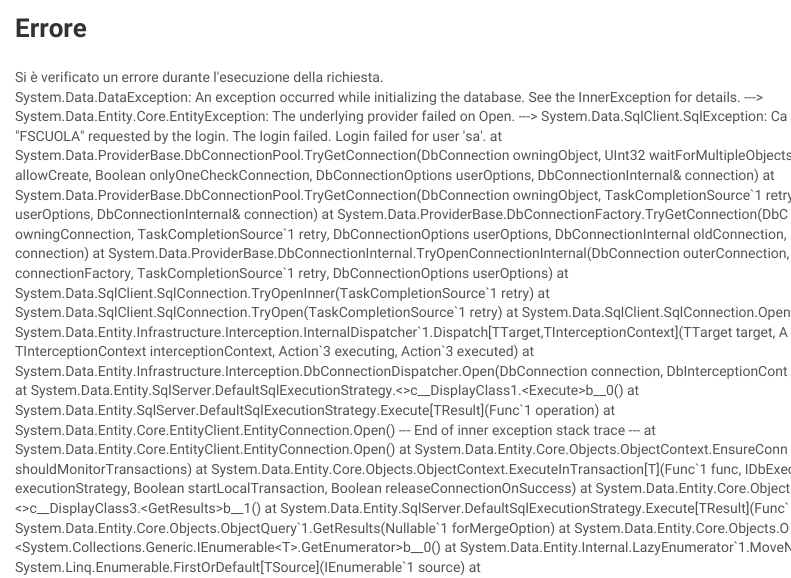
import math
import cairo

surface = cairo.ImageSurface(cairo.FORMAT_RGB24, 791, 578)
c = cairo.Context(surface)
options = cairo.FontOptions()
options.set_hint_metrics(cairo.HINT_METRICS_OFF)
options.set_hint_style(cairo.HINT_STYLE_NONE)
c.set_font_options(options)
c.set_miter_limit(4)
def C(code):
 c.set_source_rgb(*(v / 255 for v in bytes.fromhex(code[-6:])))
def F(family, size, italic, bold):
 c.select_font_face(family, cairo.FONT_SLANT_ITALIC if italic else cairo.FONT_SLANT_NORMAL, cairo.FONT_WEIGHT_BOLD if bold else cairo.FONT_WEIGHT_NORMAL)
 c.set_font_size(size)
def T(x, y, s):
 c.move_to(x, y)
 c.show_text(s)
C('ffffff')
c.paint()
F('Roboto',26,0,1)
C('333333')
T(15,37,'Errore')
F('Roboto',14,0,0)
C('545454')
T(15,82,'Si è verificato un errore durante l\'esecuzione della richiesta.')
T(15,102,'System.Data.DataException: An exception occurred while initializing the database. See the InnerException for details. --->')
T(15,121,'System.Data.Entity.Core.EntityException: The underlying provider failed on Open. ---> System.Data.SqlClient.SqlException: Ca')
T(15,141,'"FSCUOLA" requested by the login. The login failed. Login failed for user \'sa\'. at')
T(15,160,'System.Data.ProviderBase.DbConnectionPool.TryGetConnection(DbConnection owningObject, UInt32 waitForMultipleObjects')
T(15,180,'allowCreate, Boolean onlyOneCheckConnection, DbConnectionOptions userOptions, DbConnectionInternal& connection) at')
T(15,200,'System.Data.ProviderBase.DbConnectionPool.TryGetConnection(DbConnection owningObject, TaskCompletionSource`1 retry')
T(15,219,'userOptions, DbConnectionInternal& connection) at System.Data.ProviderBase.DbConnectionFactory.TryGetConnection(DbC')
T(15,239,'owningConnection, TaskCompletionSource`1 retry, DbConnectionOptions userOptions, DbConnectionInternal oldConnection,')
T(15,258,'connection) at System.Data.ProviderBase.DbConnectionInternal.TryOpenConnectionInternal(DbConnection outerConnection,')
T(15,278,'connectionFactory, TaskCompletionSource`1 retry, DbConnectionOptions userOptions) at')
T(15,298,'System.Data.SqlClient.SqlConnection.TryOpenInner(TaskCompletionSource`1 retry) at')
T(15,317,'System.Data.SqlClient.SqlConnection.TryOpen(TaskCompletionSource`1 retry) at System.Data.SqlClient.SqlConnection.Open')
T(15,337,'System.Data.Entity.Infrastructure.Interception.InternalDispatcher`1.Dispatch[TTarget,TInterceptionContext](TTarget target, A')
T(15,356,'TInterceptionContext interceptionContext, Action`3 executing, Action`3 executed) at')
T(15,376,'System.Data.Entity.Infrastructure.Interception.DbConnectionDispatcher.Open(DbConnection connection, DbInterceptionCont')
T(15,395,'at System.Data.Entity.SqlServer.DefaultSqlExecutionStrategy.<>c__DisplayClass1.<Execute>b__0() at')
T(15,415,'System.Data.Entity.SqlServer.DefaultSqlExecutionStrategy.Execute[TResult](Func`1 operation) at')
T(15,435,'System.Data.Entity.Core.EntityClient.EntityConnection.Open() --- End of inner exception stack trace --- at')
T(15,454,'System.Data.Entity.Core.EntityClient.EntityConnection.Open() at System.Data.Entity.Core.Objects.ObjectContext.EnsureConn')
T(15,474,'shouldMonitorTransactions) at System.Data.Entity.Core.Objects.ObjectContext.ExecuteInTransaction[T](Func`1 func, IDbExec')
T(15,493,'executionStrategy, Boolean startLocalTransaction, Boolean releaseConnectionOnSuccess) at System.Data.Entity.Core.Object')
T(15,513,'<>c__DisplayClass3.<GetResults>b__1() at System.Data.Entity.SqlServer.DefaultSqlExecutionStrategy.Execute[TResult](Func`')
T(15,533,'System.Data.Entity.Core.Objects.ObjectQuery`1.GetResults(Nullable`1 forMergeOption) at System.Data.Entity.Core.Objects.O')
T(15,552,'<System.Collections.Generic.IEnumerable<T>.GetEnumerator>b__0() at System.Data.Entity.Internal.LazyEnumerator`1.MoveN')
T(15,572,'System.Linq.Enumerable.FirstOrDefault[TSource](IEnumerable`1 source) at')
surface.write_to_png('o.png')
